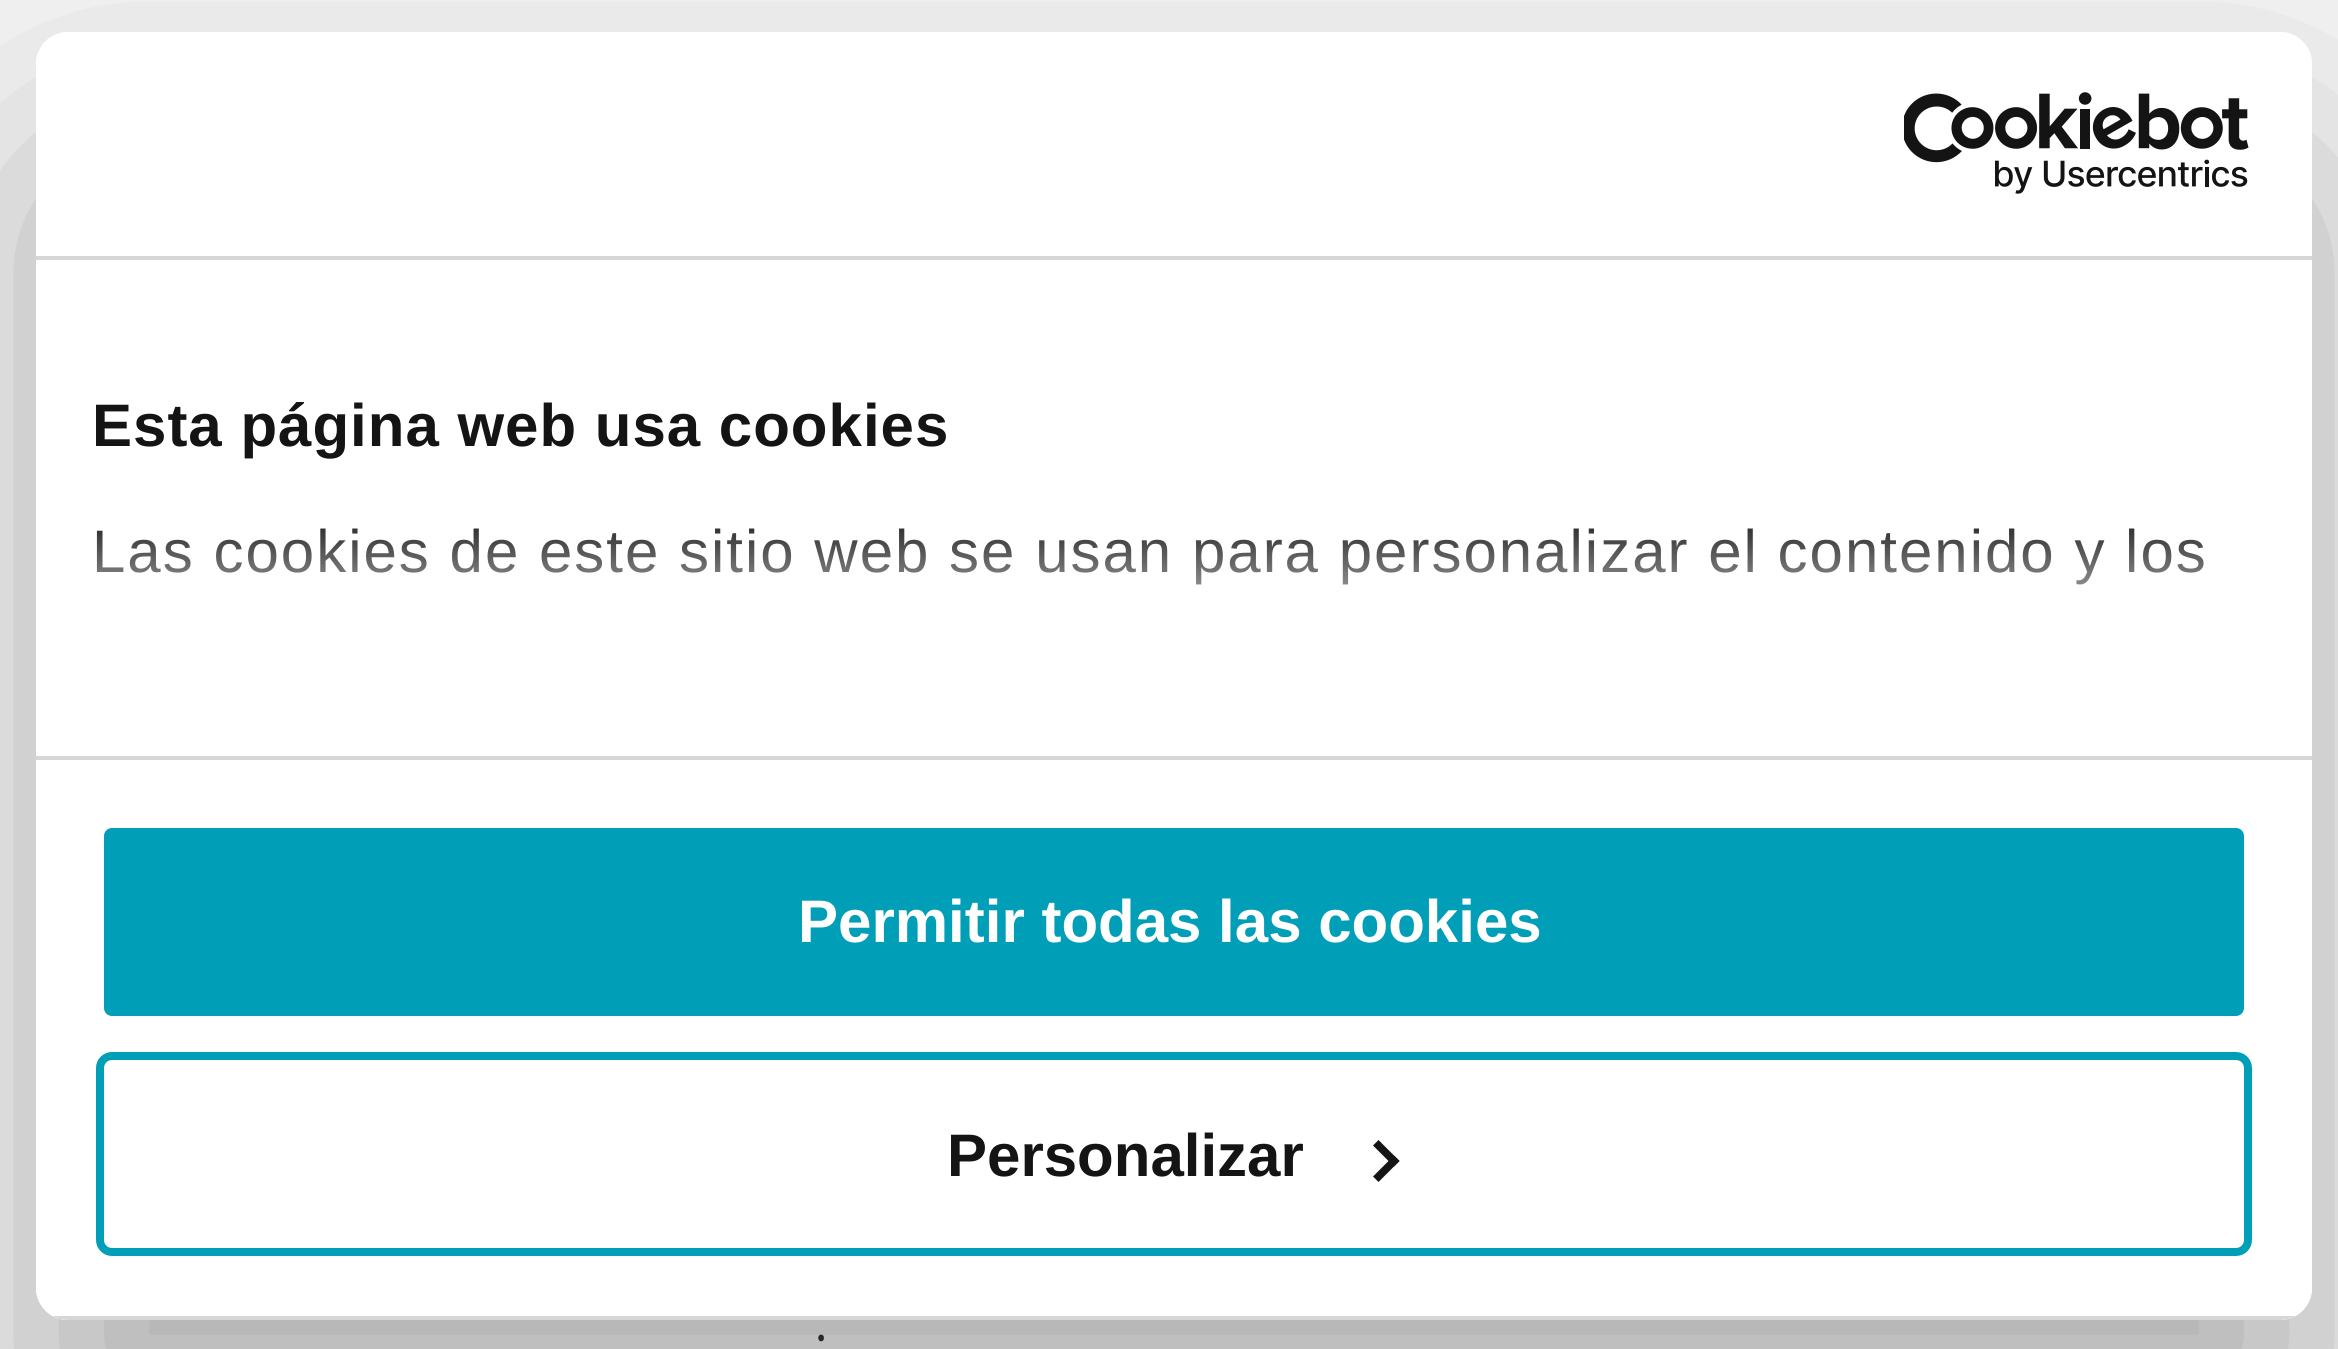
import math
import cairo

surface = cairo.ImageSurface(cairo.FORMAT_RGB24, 2338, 1349)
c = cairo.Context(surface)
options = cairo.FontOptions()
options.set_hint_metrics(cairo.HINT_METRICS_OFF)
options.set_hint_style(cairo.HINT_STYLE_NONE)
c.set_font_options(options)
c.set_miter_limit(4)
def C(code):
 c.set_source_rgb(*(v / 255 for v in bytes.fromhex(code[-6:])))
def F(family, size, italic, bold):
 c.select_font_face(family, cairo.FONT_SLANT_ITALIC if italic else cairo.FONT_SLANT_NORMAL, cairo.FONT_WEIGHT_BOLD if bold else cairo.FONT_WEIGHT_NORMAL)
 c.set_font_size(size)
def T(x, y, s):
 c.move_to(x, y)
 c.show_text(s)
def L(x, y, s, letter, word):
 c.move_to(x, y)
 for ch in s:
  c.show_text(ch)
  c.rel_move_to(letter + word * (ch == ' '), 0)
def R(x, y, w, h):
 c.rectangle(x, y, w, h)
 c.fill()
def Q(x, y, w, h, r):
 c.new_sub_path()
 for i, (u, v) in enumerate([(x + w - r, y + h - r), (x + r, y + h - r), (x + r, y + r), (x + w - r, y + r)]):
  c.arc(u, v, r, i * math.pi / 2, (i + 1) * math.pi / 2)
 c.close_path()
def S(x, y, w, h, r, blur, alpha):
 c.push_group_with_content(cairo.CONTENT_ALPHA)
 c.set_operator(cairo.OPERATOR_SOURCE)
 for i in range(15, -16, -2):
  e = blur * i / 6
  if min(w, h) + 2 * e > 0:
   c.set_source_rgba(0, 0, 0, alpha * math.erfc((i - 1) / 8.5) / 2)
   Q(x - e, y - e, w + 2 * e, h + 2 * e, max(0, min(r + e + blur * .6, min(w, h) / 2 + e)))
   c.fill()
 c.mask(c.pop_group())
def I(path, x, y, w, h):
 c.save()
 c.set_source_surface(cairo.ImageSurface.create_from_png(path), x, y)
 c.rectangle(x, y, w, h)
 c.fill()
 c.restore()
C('f6f6f6')
c.paint()
c.save()
c.set_fill_rule(cairo.FILL_RULE_EVEN_ODD)
c.new_path()
c.move_to(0,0)
c.line_to(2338,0)
c.line_to(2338,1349)
c.line_to(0,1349)
c.close_path()
c.move_to(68,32)
c.line_to(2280,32)
c.curve_to(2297.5,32,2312,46.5,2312,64)
c.line_to(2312,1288)
c.curve_to(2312,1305.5,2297.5,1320,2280,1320)
c.line_to(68,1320)
c.curve_to(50.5,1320,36,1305.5,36,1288)
c.line_to(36,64)
c.curve_to(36,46.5,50.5,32,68,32)
c.close_path()
c.clip()
C('000000')
S(36,160,2276,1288,32,136,.3)
c.restore()
C('ffffff')
Q(36,32,2276,1288,32)
c.fill()
C('d6d6d6')
R(36,256,2276,4)
I('1.png',1904,92,345,102)
R(36,756,2276,4)
F('Liberation Sans',60,0,1)
C('141414')
L(92,446,'Esta página web usa cookies',1,0)
F('Liberation Sans',60,0,0)
L(92,572,'Las cookies de este sitio web se usan para personalizar el contenido y los',2,0)
gradient = cairo.LinearGradient(1146,756,1146,508)
gradient.add_color_stop_rgba(0,1,1,1,1)
gradient.add_color_stop_rgba(.5,1,1,1,.8)
gradient.add_color_stop_rgba(1,1,1,1,0)
c.set_source(gradient)
R(96,528,2108,57)
c.save()
Q(36,32,2276,1288,32)
c.clip()
C('d6d6d6')
R(52,1316,2244,4)
c.restore()
C('009fb7')
Q(100,824,2148,196,12)
c.fill_preserve()
C('ffffff')
c.set_line_width(8)
c.stroke()
F('Liberation Sans',60,0,1)
T(798,942,'Permitir todas las cookies')
Q(100,1056,2148,196,12)
C('009fb7')
c.stroke()
C('141414')
T(947,1176,'Personalizar')
c.new_path()
c.move_to(1378.5,1140)
c.line_to(1399.5,1161)
c.line_to(1394,1166.5)
c.line_to(1373,1145.5)
c.close_path()
c.fill()
c.new_path()
c.move_to(1394,1155.5)
c.line_to(1399.5,1161)
c.line_to(1378.5,1182)
c.line_to(1373,1176.5)
c.close_path()
c.fill()
F('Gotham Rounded',58,0,0)
C('272727')
T(814,1341,'.')
surface.write_to_png('o.png')
